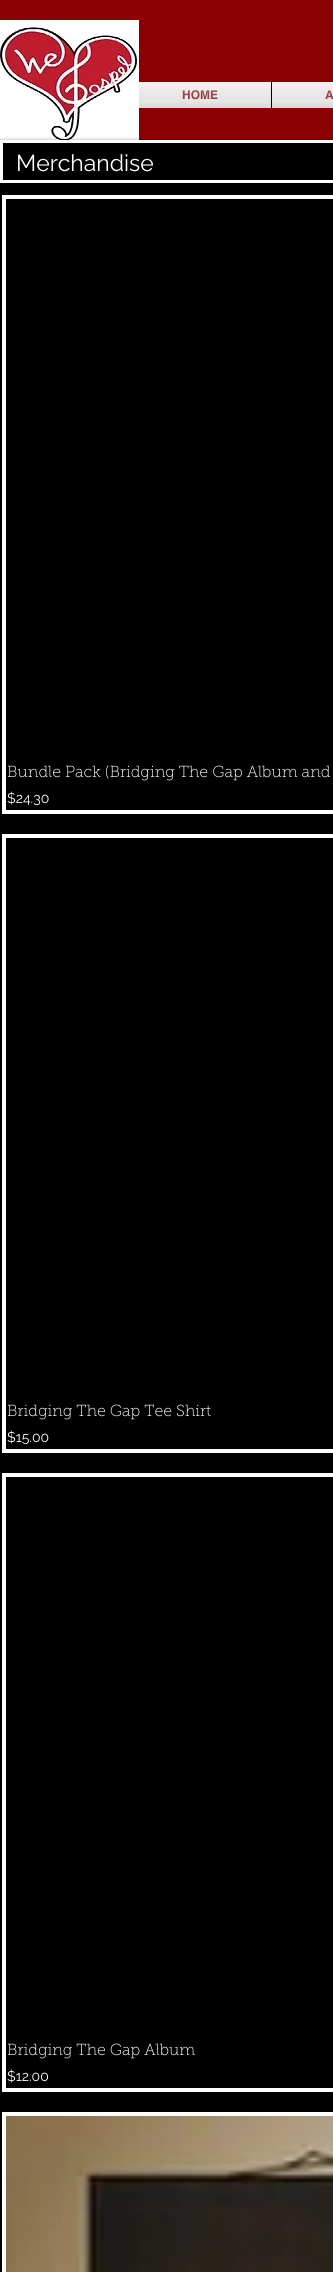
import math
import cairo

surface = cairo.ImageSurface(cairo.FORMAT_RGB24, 333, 2272)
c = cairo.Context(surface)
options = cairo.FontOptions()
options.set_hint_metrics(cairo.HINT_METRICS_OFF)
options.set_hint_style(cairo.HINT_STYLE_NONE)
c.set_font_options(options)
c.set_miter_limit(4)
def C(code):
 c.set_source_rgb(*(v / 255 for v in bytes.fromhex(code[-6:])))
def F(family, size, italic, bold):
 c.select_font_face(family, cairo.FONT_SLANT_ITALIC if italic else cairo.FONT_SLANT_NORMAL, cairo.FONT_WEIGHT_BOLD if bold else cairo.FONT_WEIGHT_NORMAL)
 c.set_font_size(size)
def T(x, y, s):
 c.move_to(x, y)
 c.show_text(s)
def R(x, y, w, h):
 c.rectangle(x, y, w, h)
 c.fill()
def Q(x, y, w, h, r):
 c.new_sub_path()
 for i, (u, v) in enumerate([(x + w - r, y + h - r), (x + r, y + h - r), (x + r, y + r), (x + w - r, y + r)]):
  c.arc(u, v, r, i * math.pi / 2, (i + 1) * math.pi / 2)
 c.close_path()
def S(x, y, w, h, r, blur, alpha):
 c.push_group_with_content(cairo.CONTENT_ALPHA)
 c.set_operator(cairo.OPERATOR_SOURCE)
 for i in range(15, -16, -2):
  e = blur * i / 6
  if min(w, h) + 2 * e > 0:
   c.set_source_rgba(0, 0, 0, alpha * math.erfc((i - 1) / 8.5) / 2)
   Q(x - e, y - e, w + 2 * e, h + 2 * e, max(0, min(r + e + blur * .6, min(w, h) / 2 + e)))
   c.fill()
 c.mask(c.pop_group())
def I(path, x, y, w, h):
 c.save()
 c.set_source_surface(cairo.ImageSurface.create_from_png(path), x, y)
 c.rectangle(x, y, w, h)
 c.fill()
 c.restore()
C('8b0000')
c.paint()
I('1.png',0,20,139,120)
C('ffffff')
R(139,82,132,26)
F('helvetica',12,0,1)
C('8b0000')
T(182,99,'HOME')
I('2.png',183,90,35,10)
I('3.png',139,82,132,26)
C('ffffff')
R(272,82,61,26)
C('000000')
R(271,82,1,26)
C('8b0000')
T(325,99,'A')
I('4.png',325,90,8,9)
I('5.png',272,82,61,26)
C('000000')
R(0,143,333,2129)
c.save()
c.set_fill_rule(cairo.FILL_RULE_EVEN_ODD)
c.new_path()
c.move_to(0,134)
c.line_to(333,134)
c.line_to(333,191)
c.line_to(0,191)
c.close_path()
c.move_to(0,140)
c.line_to(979,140)
c.line_to(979,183)
c.line_to(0,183)
c.close_path()
c.clip()
C('000000')
S(0,141,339,43,0,2,.6)
c.restore()
c.rectangle(1.5,141.5,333,40)
C('ffffff')
c.set_line_width(3)
c.stroke()
F('Raleway',23,0,0)
T(16,171,'Merchandise')
c.rectangle(4,197,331,615)
c.set_line_width(4)
c.stroke()
F('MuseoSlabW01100 Thin',16,0,0)
T(7,777,'Bundle Pack (Bridging The Gap Album and')
F('Raleway',14,0,0)
T(7,803,'$24.30')
c.rectangle(4,836,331,615)
c.stroke()
F('MuseoSlabW01100 Thin',16,0,0)
T(7,1416,'Bridging The Gap Tee Shirt')
F('Raleway',14,0,0)
T(7,1442,'$15.00')
c.rectangle(4,1475,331,615)
c.stroke()
F('MuseoSlabW01100 Thin',16,0,0)
T(7,2055,'Bridging The Gap Album')
F('Raleway',14,0,0)
T(7,2081,'$12.00')
c.rectangle(4,2114,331,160)
c.stroke()
I('6.png',6,2116,327,156)
surface.write_to_png('o.png')
